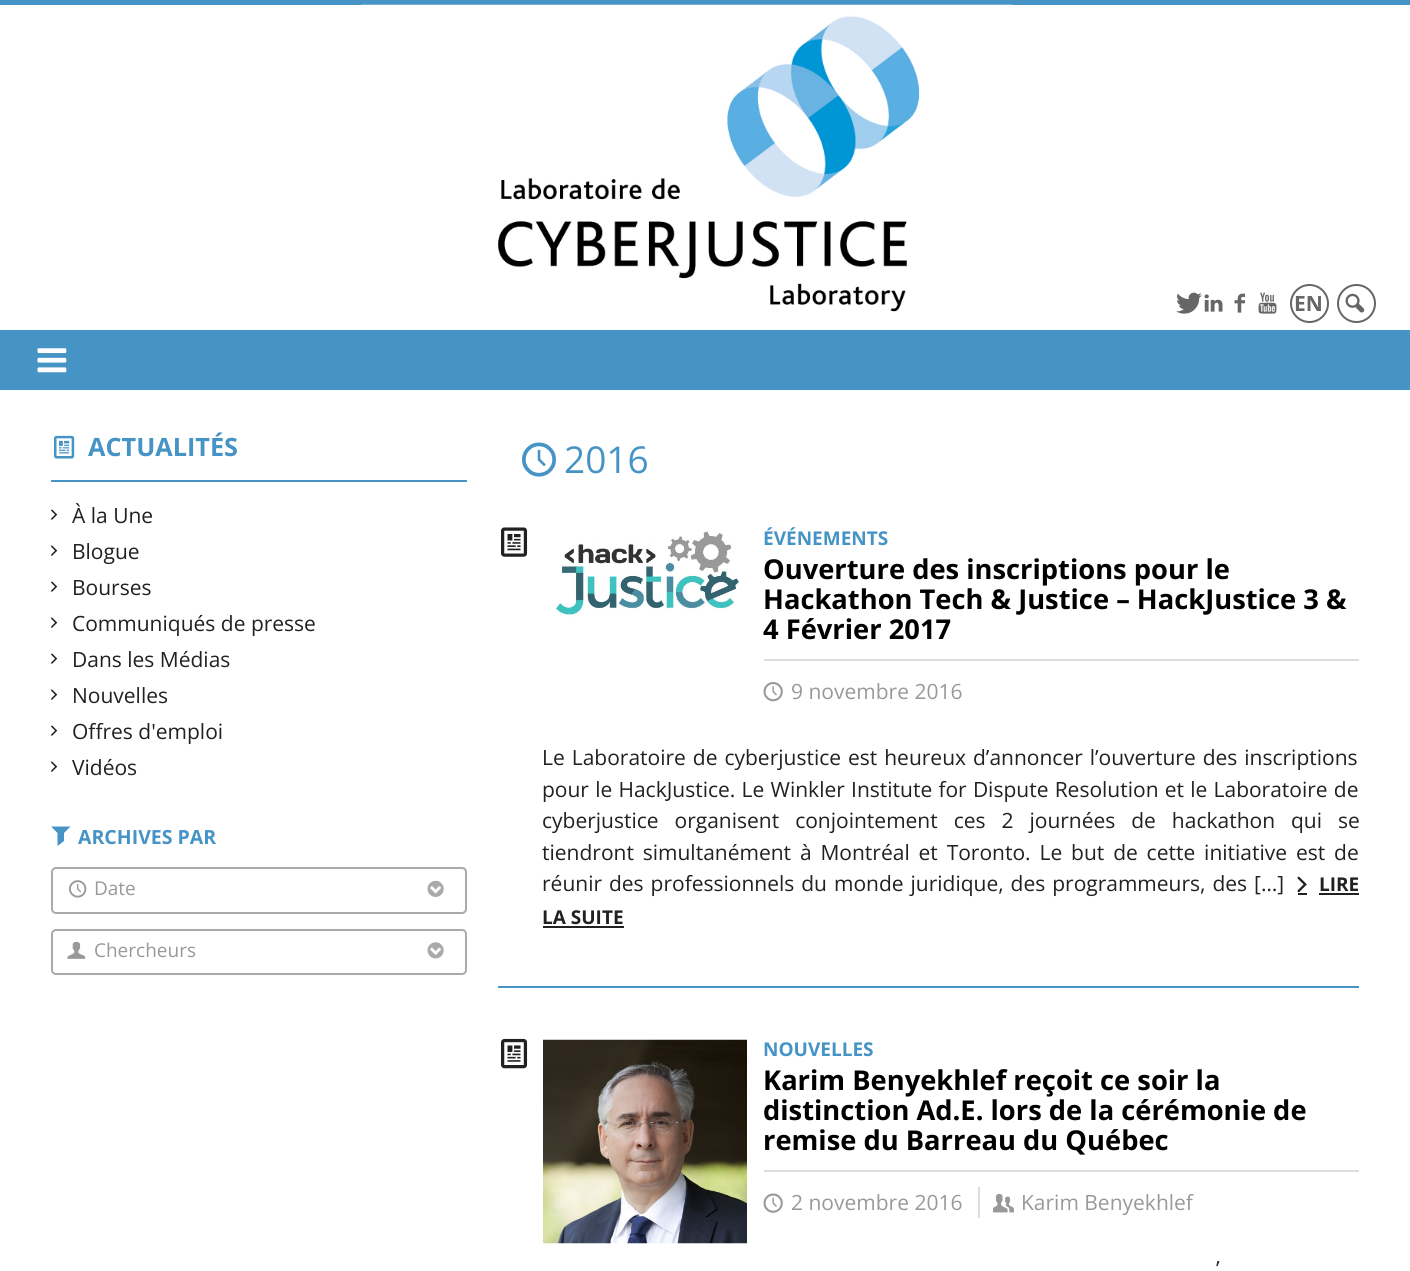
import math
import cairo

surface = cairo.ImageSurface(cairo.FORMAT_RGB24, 1410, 1271)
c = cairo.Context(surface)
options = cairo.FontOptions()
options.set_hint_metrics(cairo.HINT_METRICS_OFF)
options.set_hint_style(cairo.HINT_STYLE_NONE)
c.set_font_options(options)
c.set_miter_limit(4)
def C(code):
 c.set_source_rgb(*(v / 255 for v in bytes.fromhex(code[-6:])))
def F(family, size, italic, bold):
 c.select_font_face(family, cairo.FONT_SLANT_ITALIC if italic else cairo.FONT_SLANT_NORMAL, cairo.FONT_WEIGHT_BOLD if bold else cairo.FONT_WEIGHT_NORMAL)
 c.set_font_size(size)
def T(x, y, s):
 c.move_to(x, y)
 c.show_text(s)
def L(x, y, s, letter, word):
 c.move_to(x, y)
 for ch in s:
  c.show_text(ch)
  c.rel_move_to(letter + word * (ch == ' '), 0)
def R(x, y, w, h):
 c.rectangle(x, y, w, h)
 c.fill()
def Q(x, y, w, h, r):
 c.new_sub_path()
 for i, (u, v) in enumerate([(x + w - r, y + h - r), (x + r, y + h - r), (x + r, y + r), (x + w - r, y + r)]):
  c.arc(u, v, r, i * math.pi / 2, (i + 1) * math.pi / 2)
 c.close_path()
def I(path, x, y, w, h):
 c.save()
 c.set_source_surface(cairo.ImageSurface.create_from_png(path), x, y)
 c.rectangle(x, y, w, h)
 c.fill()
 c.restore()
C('ffffff')
c.paint()
C('4694c5')
R(0,0,1410,5)
I('1.png',361,4,652,308)
I('2.png',1176,292,26,22)
I('3.png',1204,294,19,18)
I('4.png',1234,293,11,20)
I('5.png',1258,292,19,22)
c.arc(1309.5,303.5,18.5,0,2 * math.pi)
C('666666')
c.stroke()
F('Open Sans',21,0,1)
T(1294,311,'EN')
c.new_path()
c.arc(1356.5,303.5,18.5,0,2 * math.pi)
c.stroke()
I('6.png',1345,293,20,20)
C('4694c5')
R(0,330,1410,60)
I('7.png',37,348,30,25)
R(51,480,416,2)
I('8.png',54,435,21,24)
F('Open Sans',25.25,0,1)
T(88,456,'ACTUALITÉS')
I('9.png',51,509,7,11)
F('Open Sans',21,0,0)
C('212121')
T(72,523,'À la Une')
I('9.png',51,545,7,11)
T(72,559,'Blogue')
I('9.png',51,581,7,11)
T(72,595,'Bourses')
I('9.png',51,617,7,11)
T(72,631,'Communiqués de presse')
I('9.png',51,653,7,11)
T(72,667,'Dans les Médias')
I('9.png',51,689,7,11)
T(72,703,'Nouvelles')
I('9.png',51,725,7,11)
T(72,739,'Offres d\'emploi')
I('9.png',51,761,7,11)
T(72,775,'Vidéos')
C('4694c5')
c.new_path()
c.move_to(51,826.5)
c.line_to(70.5,826.5)
c.line_to(64,833)
c.line_to(64,841)
c.line_to(57.5,846)
c.line_to(57.5,833)
c.close_path()
c.fill()
F('Open Sans',19.5,0,1)
T(78,844,'ARCHIVES PAR')
Q(52,868,414,45,4)
C('aaaaaa')
c.stroke()
I('10.png',69,880,18,18)
F('Open Sans',19,0,0)
C('999999')
T(94,895,'Date')
I('11.png',427,880,17,17)
Q(52,930,414,44,4)
C('aaaaaa')
c.stroke()
I('12.png',67,941,19,18)
C('999999')
T(94,957,'Chercheurs')
I('13.png',427,942,17,17)
I('14.png',522,442,34,35)
F('Open Sans',37,0,0)
C('4694c5')
T(564,473,'2016')
R(498,986,861,2)
I('15.png',501,527,27,30)
I('16.png',555,531,185,87)
F('Open Sans',19,0,1)
T(763,545,'ÉVÉNEMENTS')
F('Open Sans',27.3,0,1)
C('000000')
T(763,579,'Ouverture des inscriptions pour le')
T(763,609,'Hackathon Tech & Justice – HackJustice 3 &')
T(763,639,'4 Février 2017')
C('dddddd')
R(764,659,595,2)
I('17.png',763,682,20,20)
F('Open Sans',21,0,0)
C('999999')
T(791,699,'9 novembre 2016')
C('212121')
L(542,765,'Le Laboratoire de cyberjustice est heureux d’annoncer l’ouverture des inscriptions',0,1.5)
L(542,797,'pour le HackJustice. Le Winkler Institute for Dispute Resolution et le Laboratoire de',0,.75)
L(542,828,'cyberjustice organisent conjointement ces 2 journées de hackathon qui se',0,10.5)
L(542,860,'tiendront simultanément à Montréal et Toronto. Le but de cette initiative est de',0,3.4)
L(542,891,'réunir des professionnels du monde juridique, des programmeurs, des […]',0,1.5)
R(1298,893,9,2)
I('18.png',1297,876,10,17)
F('Open Sans',19,0,1)
T(1319,891,'LIRE')
R(1319,893,40,2)
T(542,924,'LA SUITE')
R(543,926,81,2)
I('19.png',501,1038,27,31)
I('20.png',543,1039,204,205)
C('4694c5')
T(763,1056,'NOUVELLES')
F('Open Sans',27.3,0,1)
C('000000')
T(763,1090,'Karim Benyekhlef reçoit ce soir la')
T(763,1120,'distinction Ad.E. lors de la cérémonie de')
T(763,1150,'remise du Barreau du Québec')
C('dddddd')
R(764,1170,595,2)
R(978,1187,2,31)
I('21.png',763,1193,20,20)
F('Open Sans',21,0,0)
C('999999')
T(791,1210,'2 novembre 2016')
I('22.png',993,1193,21,20)
T(1021,1210,'Karim Benyekhlef')
C('212121')
L(1216,1276,'’',0,3)
surface.write_to_png('o.png')
